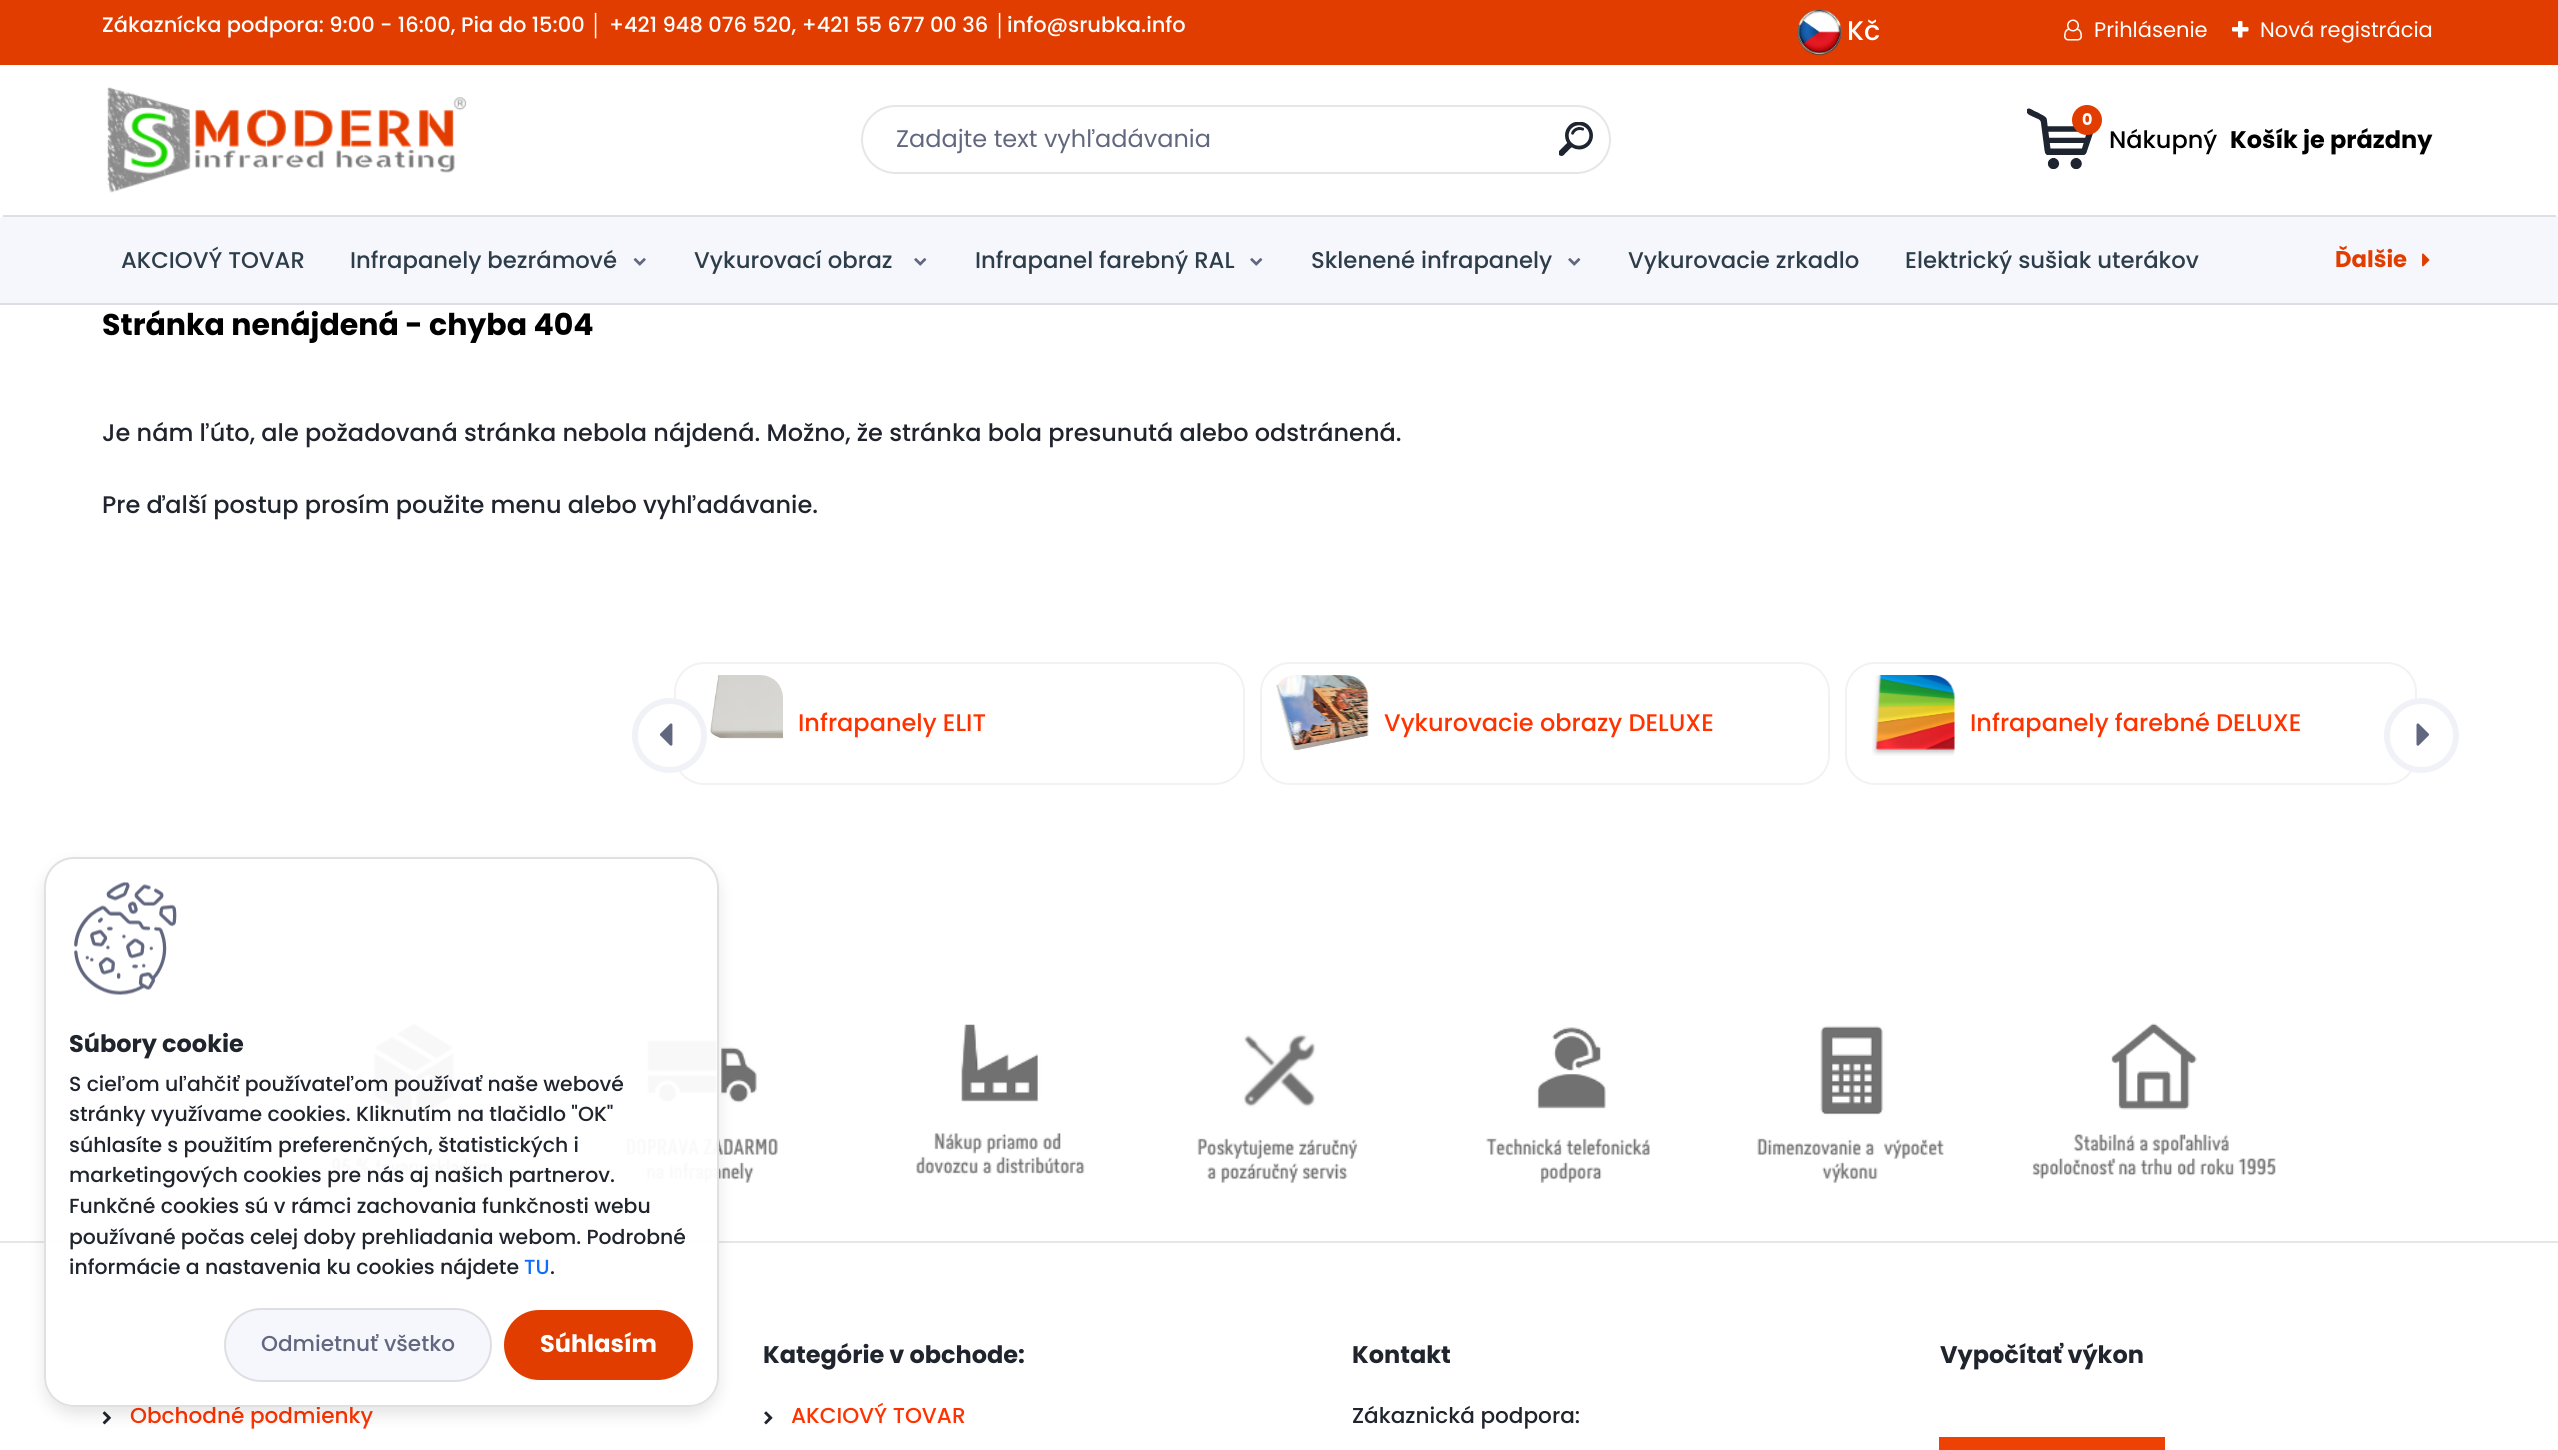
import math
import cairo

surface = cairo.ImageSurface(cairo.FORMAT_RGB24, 2558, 1450)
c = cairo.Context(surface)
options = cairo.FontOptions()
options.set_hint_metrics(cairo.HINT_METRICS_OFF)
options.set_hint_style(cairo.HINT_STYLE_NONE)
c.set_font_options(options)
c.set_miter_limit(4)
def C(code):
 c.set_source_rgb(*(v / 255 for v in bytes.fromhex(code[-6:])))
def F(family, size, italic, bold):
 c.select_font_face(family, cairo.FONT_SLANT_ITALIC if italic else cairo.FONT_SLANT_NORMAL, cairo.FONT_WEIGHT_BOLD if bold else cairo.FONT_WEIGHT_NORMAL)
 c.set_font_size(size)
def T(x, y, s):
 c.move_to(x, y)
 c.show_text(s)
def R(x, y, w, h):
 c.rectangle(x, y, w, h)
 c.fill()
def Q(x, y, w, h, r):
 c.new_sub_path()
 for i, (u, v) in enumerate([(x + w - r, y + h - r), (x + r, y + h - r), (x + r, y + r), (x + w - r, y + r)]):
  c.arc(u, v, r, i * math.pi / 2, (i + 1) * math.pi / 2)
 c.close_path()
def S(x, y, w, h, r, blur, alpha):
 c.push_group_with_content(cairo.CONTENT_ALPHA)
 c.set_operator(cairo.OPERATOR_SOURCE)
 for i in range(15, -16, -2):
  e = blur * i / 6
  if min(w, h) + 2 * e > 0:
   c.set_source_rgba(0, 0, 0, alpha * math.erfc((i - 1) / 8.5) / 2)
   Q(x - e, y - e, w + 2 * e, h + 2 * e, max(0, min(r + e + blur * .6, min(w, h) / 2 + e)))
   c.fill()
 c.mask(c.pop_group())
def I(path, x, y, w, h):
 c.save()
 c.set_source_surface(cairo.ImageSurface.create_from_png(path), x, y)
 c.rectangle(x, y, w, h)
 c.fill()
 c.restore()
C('ffffff')
c.paint()
C('e23d00')
R(0,0,2558,65)
F('Poppins Medium',21,0,0)
C('ffffff')
T(102,32,'Zákaznícka podpora: 9:00 - 16:00, Pia do 15:00')
F('Liberation Sans',21,0,0)
T(590,32,'│')
F('Poppins Medium',21,0,0)
T(609,32,'+421 948 076 520, +421 55 677 00 36')
F('Liberation Sans',21,0,0)
T(994,32,'│')
F('Poppins Medium',21,0,0)
T(1007,32,'info@srubka.info')
I('1.png',1797,9,45,47)
F('Poppins Medium',27,0,0)
T(1847,40,'Kč')
I('2.png',2064,19,18,22)
F('Poppins',21,0,0)
T(2094,37,'Prihlásenie')
I('3.png',2232,21,17,17)
T(2260,37,'Nová registrácia')
I('4.png',107,87,360,106)
Q(862,106,748,67,33.5)
C('e6e6e6')
c.stroke()
F('Poppins',24,0,0)
C('626780')
T(896,147,'Zadajte text vyhľadávania')
I('5.png',1559,122,34,34)
I('6.png',2027,108,66,61)
C('e23d00')
c.arc(2087,120,15,0,2 * math.pi)
c.fill()
F('Poppins',16,0,1)
C('ffffff')
T(2082,125,'0')
F('Poppins Medium',24,0,0)
C('000000')
T(2109,148,'Nákupný')
F('Poppins',24,0,1)
T(2230,148,'Košík je prázdny')
C('f6f7fc')
c.new_path()
c.move_to(6,215)
c.line_to(2553,215)
c.curve_to(2556.5,215,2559,217.5,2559,221)
c.line_to(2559,305)
c.line_to(0,305)
c.line_to(0,221)
c.curve_to(0,217.5,2.5,215,6,215)
c.close_path()
c.fill()
c.set_source_rgba(0,0,0,0.1)
R(3,215,2553,2)
C('dddee3')
R(0,303,2558,2)
F('Poppins Medium',22.75,0,0)
C('2d3d4a')
T(121,268,'AKCIOVÝ TOVAR')
T(350,268,'Infrapanely bezrámové')
I('7.png',633,258,13,8)
T(694,268,'Vykurovací obraz')
I('8.png',914,258,13,8)
T(975,268,'Infrapanel farebný RAL')
I('8.png',1250,258,13,8)
T(1311,268,'Sklenené infrapanely')
I('8.png',1568,258,13,8)
T(1628,268,'Vykurovacie zrkadlo')
T(1905,268,'Elektrický sušiak uterákov')
F('Poppins',22.75,0,1)
C('e23d00')
T(2335,267,'Ďalšie')
I('9.png',2422,253,8,14)
F('Poppins',30,0,1)
C('000000')
T(102,335,'Stránka nenájdená - chyba 404')
F('Poppins Medium',24,0,0)
C('1f242d')
T(102,441,'Je nám ľúto, ale požadovaná stránka nebola nájdená. Možno, že stránka bola presunutá alebo odstránená.')
T(102,513,'Pre ďalší postup prosím použite menu alebo vyhľadávanie.')
Q(675,663,569,121,29)
C('f2f2f2')
c.stroke()
C('ffffff')
c.arc(669.5,735.5,34.5,0,2 * math.pi)
c.fill_preserve()
C('f1f2f7')
c.set_line_width(6)
c.stroke()
I('10.png',659,723,14,23)
Q(1846,663,570,121,29)
C('f2f2f2')
c.set_line_width(2)
c.stroke()
C('ffffff')
c.arc(2421.5,735.5,34.5,0,2 * math.pi)
c.fill_preserve()
C('f1f2f7')
c.set_line_width(6)
c.stroke()
I('11.png',2416,723,13,23)
I('12.png',710,675,73,64)
C('ff3300')
T(798,731,'Infrapanely ELIT')
Q(1261,663,568,121,29)
C('f2f2f2')
c.set_line_width(2)
c.stroke()
I('13.png',1276,675,93,76)
C('ff3300')
T(1384,731,'Vykurovacie obrazy DELUXE')
I('14.png',1872,675,83,81)
T(1970,731,'Infrapanely farebné DELUXE')
I('15.png',331,1023,1945,160)
C('e6e6e6')
R(0,1241,2558,2)
I('16.png',102,1411,9,14)
F('Poppins Medium',21.6,0,0)
C('ff3300')
T(130,1423,'Obchodné podmienky')
F('Poppins',24,0,1)
C('1f242d')
T(763,1363,'Kategórie v obchode:')
I('17.png',764,1411,9,14)
F('Poppins Medium',21.6,0,0)
C('ff3300')
T(791,1423,'AKCIOVÝ TOVAR')
F('Poppins',24,0,1)
C('1f242d')
T(1352,1363,'Kontakt')
F('Poppins Medium',21.6,0,0)
T(1352,1423,'Zákaznická podpora:')
F('Poppins',24,0,1)
T(1940,1363,'Vypočítať výkon')
C('ee4205')
R(1939,1437,226,13)
c.save()
c.set_fill_rule(cairo.FILL_RULE_EVEN_ODD)
c.new_path()
c.move_to(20,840)
c.line_to(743,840)
c.line_to(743,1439)
c.line_to(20,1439)
c.close_path()
c.move_to(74,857)
c.line_to(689,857)
c.curve_to(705.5,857,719,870.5,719,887)
c.line_to(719,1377)
c.curve_to(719,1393.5,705.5,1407,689,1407)
c.line_to(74,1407)
c.curve_to(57.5,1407,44,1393.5,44,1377)
c.line_to(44,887)
c.curve_to(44,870.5,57.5,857,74,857)
c.close_path()
c.clip()
C('000000')
S(44,864,675,551,30,7.5,.1)
c.restore()
c.set_source_rgba(1,1,1,0.95)
Q(45,858,673,548,29)
c.fill_preserve()
C('e0e0e0')
c.stroke()
I('18.png',74,882,103,113)
C('1f242d')
T(69,1052,'Súbory cookie')
F('Poppins Medium',20.4,0,0)
T(69,1091,'S cieľom uľahčiť používateľom používať naše webové')
T(69,1121,'stránky využívame cookies. Kliknutím na tlačidlo "OK"')
T(69,1152,'súhlasíte s použitím preferenčných, štatistických i')
T(69,1182,'marketingových cookies pre nás aj našich partnerov.')
T(69,1213,'Funkčné cookies sú v rámci zachovania funkčnosti webu')
T(69,1244,'používané počas celej doby prehliadania webom. Podrobné')
T(69,1274,'informácie a nastavenia ku cookies nájdete')
C('0d6efd')
T(524,1274,'TU')
C('1f242d')
T(550,1274,'.')
C('f6f7fc')
Q(224,1308,268,74,37)
c.fill()
Q(225,1309,266,72,36)
c.set_source_rgba(0,0,0,0.1)
c.stroke()
F('Poppins Medium',21.6,0,0)
C('626780')
T(261,1351,'Odmietnuť všetko')
C('e23d00')
Q(504,1310,189,70,35)
c.fill()
F('Poppins',24,0,1)
C('ffffff')
T(540,1352,'Súhlasím')
surface.write_to_png('o.png')
